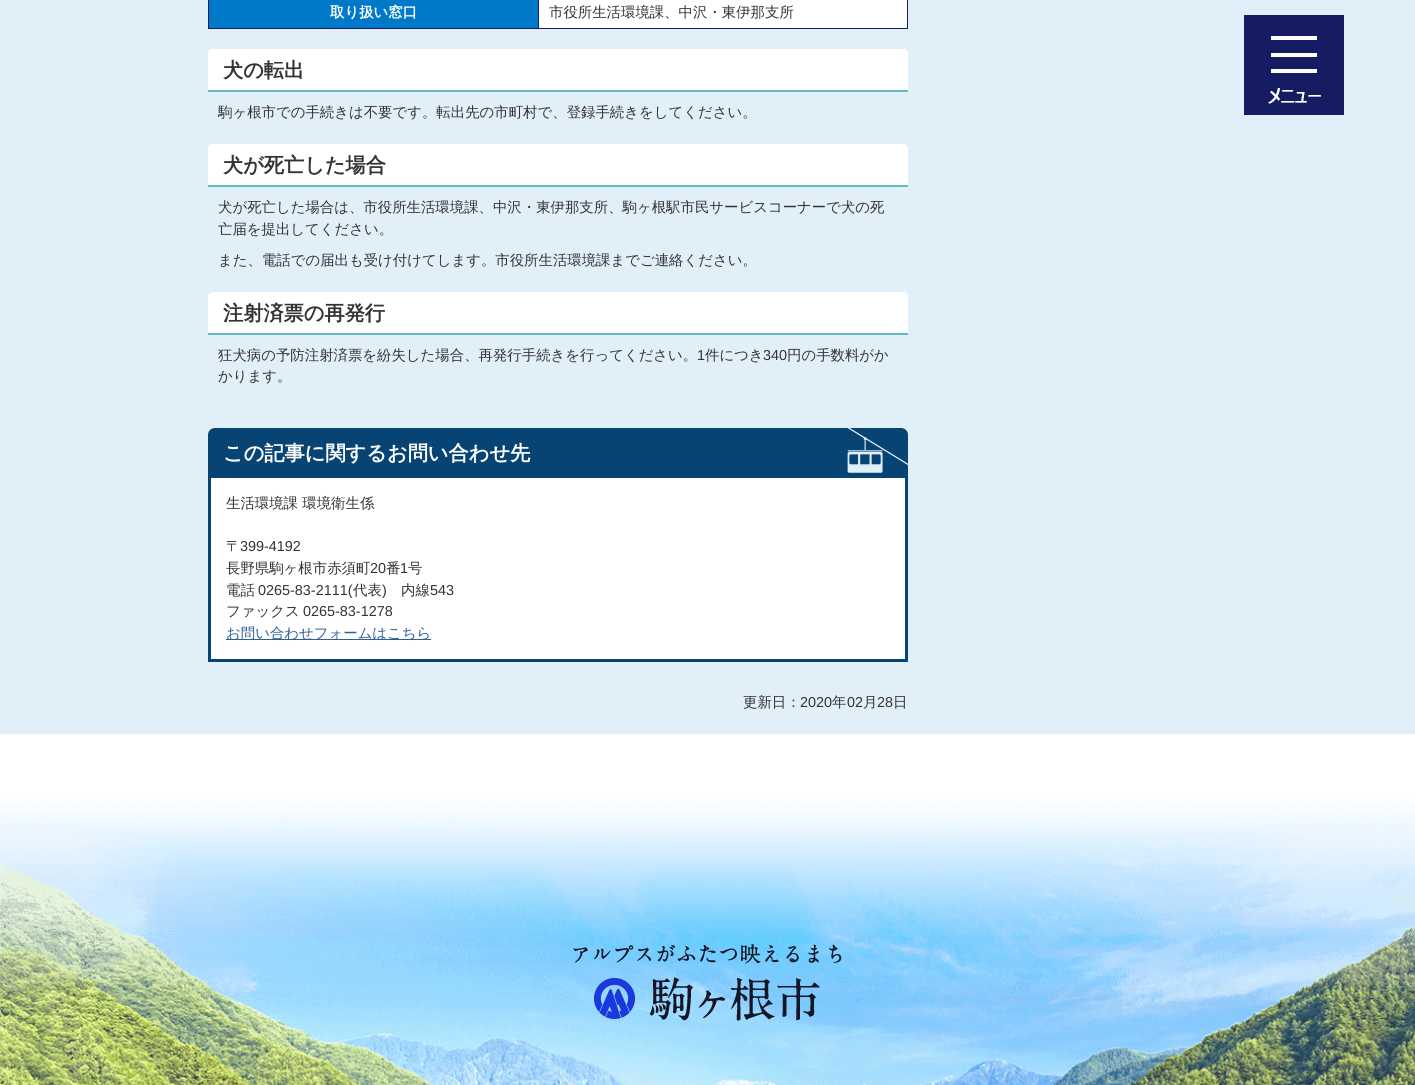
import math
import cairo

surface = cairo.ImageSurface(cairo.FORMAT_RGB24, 1415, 1085)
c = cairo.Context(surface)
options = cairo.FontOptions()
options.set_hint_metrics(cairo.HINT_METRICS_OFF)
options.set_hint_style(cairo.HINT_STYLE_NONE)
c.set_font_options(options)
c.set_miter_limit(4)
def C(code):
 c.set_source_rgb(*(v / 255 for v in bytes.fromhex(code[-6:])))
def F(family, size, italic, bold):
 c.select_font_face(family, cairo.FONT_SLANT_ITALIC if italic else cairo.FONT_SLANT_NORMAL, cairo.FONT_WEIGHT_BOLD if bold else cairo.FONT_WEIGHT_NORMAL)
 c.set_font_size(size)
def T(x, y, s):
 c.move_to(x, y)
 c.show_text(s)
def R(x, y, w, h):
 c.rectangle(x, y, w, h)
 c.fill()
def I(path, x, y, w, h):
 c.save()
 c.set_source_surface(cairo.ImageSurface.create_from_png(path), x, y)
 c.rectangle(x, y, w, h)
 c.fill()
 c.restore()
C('ffffff')
c.paint()
C('e1eff9')
R(0,0,1415,734)
C('ffffff')
R(539,0,368,28)
C('007ac8')
R(209,0,329,28)
C('151c62')
R(907,0,1,29)
R(538,28,370,1)
R(538,0,1,29)
R(208,28,331,1)
R(208,0,1,29)
F('WenQuanYi Zen Hei',14.4,0,1)
C('ffffff')
T(330,17,'取り扱い窓口')
F('WenQuanYi Zen Hei Medium',14.4,0,0)
C('333333')
T(549,17,'市役所生活環境課、中沢・東伊那支所')
C('ffffff')
c.new_path()
c.move_to(212,49)
c.line_to(904,49)
c.curve_to(906,49,908,51,908,53)
c.line_to(908,92)
c.line_to(208,92)
c.line_to(208,53)
c.curve_to(208,51,210,49,212,49)
c.close_path()
c.fill()
C('64b9c4')
R(208,90,700,2)
F('WenQuanYi Zen Hei',20.2,0,1)
C('333333')
T(223,77,'犬の転出')
F('WenQuanYi Zen Hei Medium',14.4,0,0)
T(218,117,'駒ヶ根市での手続きは不要です。転出先の市町村で、登録手続きをしてください。')
C('ffffff')
c.new_path()
c.move_to(212,144)
c.line_to(904,144)
c.curve_to(906,144,908,146,908,148)
c.line_to(908,187)
c.line_to(208,187)
c.line_to(208,148)
c.curve_to(208,146,210,144,212,144)
c.close_path()
c.fill()
C('64b9c4')
R(208,185,700,2)
F('WenQuanYi Zen Hei',20.2,0,1)
C('333333')
T(223,172,'犬が死亡した場合')
F('WenQuanYi Zen Hei Medium',14.4,0,0)
T(218,212,'犬が死亡した場合は、市役所生活環境課、中沢・東伊那支所、駒ヶ根駅市民サービスコーナーで犬の死')
T(218,234,'亡届を提出してください。')
T(218,265,'また、電話での届出も受け付けてします。市役所生活環境課までご連絡ください。')
C('ffffff')
c.new_path()
c.move_to(212,292)
c.line_to(904,292)
c.curve_to(906,292,908,294,908,296)
c.line_to(908,335)
c.line_to(208,335)
c.line_to(208,296)
c.curve_to(208,294,210,292,212,292)
c.close_path()
c.fill()
C('64b9c4')
R(208,333,700,2)
F('WenQuanYi Zen Hei',20.2,0,1)
C('333333')
T(223,320,'注射済票の再発行')
F('WenQuanYi Zen Hei Medium',14.4,0,0)
T(218,360,'狂犬病の予防注射済票を紛失した場合、再発行手続きを行ってください。')
F('Liberation Sans',14.4,0,0)
T(697,360,'1')
F('WenQuanYi Zen Hei Medium',14.4,0,0)
T(705,360,'件につき')
F('Liberation Sans',14.4,0,0)
T(763,360,'340')
F('WenQuanYi Zen Hei Medium',14.4,0,0)
T(787,360,'円の手数料がか')
T(218,381,'かります。')
C('074474')
c.new_path()
c.move_to(215,428)
c.line_to(901,428)
c.curve_to(905,428,908,431,908,435)
c.line_to(908,478)
c.line_to(208,478)
c.line_to(208,435)
c.curve_to(208,431,211,428,215,428)
c.close_path()
c.fill()
I('1.png',847,428,61,45)
F('WenQuanYi Zen Hei',20.2,0,1)
C('ffffff')
T(223,460,'この記事に関するお問い合わせ先')
R(211,478,694,181)
C('074474')
R(905,478,3,184)
R(208,659,700,3)
R(208,478,3,184)
F('WenQuanYi Zen Hei Medium',14.4,0,0)
C('333333')
T(226,508,'生活環境課 環境衛生係')
T(226,551,'〒')
F('Liberation Sans',14.4,0,0)
T(240,551,'399-4192')
F('WenQuanYi Zen Hei Medium',14.4,0,0)
T(226,573,'長野県駒ヶ根市赤須町')
F('Liberation Sans',14.4,0,0)
T(370,573,'20')
F('WenQuanYi Zen Hei Medium',14.4,0,0)
T(386,573,'番')
F('Liberation Sans',14.4,0,0)
T(400,573,'1')
F('WenQuanYi Zen Hei Medium',14.4,0,0)
T(408,573,'号')
T(226,595,'電話')
F('Liberation Sans',14.4,0,0)
T(258,595,'0265-83-2111(')
F('WenQuanYi Zen Hei Medium',14.4,0,0)
T(353,595,'代表')
F('Liberation Sans',14.4,0,0)
T(382,595,')')
F('WenQuanYi Zen Hei Medium',14.4,0,0)
T(401,595,'内線')
F('Liberation Sans',14.4,0,0)
T(430,595,'543')
F('WenQuanYi Zen Hei Medium',14.4,0,0)
T(226,616,'ファックス')
F('Liberation Sans',14.4,0,0)
T(303,616,'0265-83-1278')
C('2d5f92')
R(226,639,205,1)
F('WenQuanYi Zen Hei Medium',14.4,0,0)
T(226,638,'お問い合わせフォームはこちら')
C('333333')
T(743,707,'更新日：')
F('Liberation Sans',14.4,0,0)
T(800,707,'2020')
F('WenQuanYi Zen Hei Medium',14.4,0,0)
T(832,707,'年')
F('Liberation Sans',14.4,0,0)
T(847,707,'02')
F('WenQuanYi Zen Hei Medium',14.4,0,0)
T(863,707,'月')
F('Liberation Sans',14.4,0,0)
T(877,707,'28')
F('WenQuanYi Zen Hei Medium',14.4,0,0)
T(893,707,'日')
I('2.png',1244,15,100,100)
I('3.png',0,796,1415,289)
I('4.png',573,944,269,77)
surface.write_to_png('o.png')
